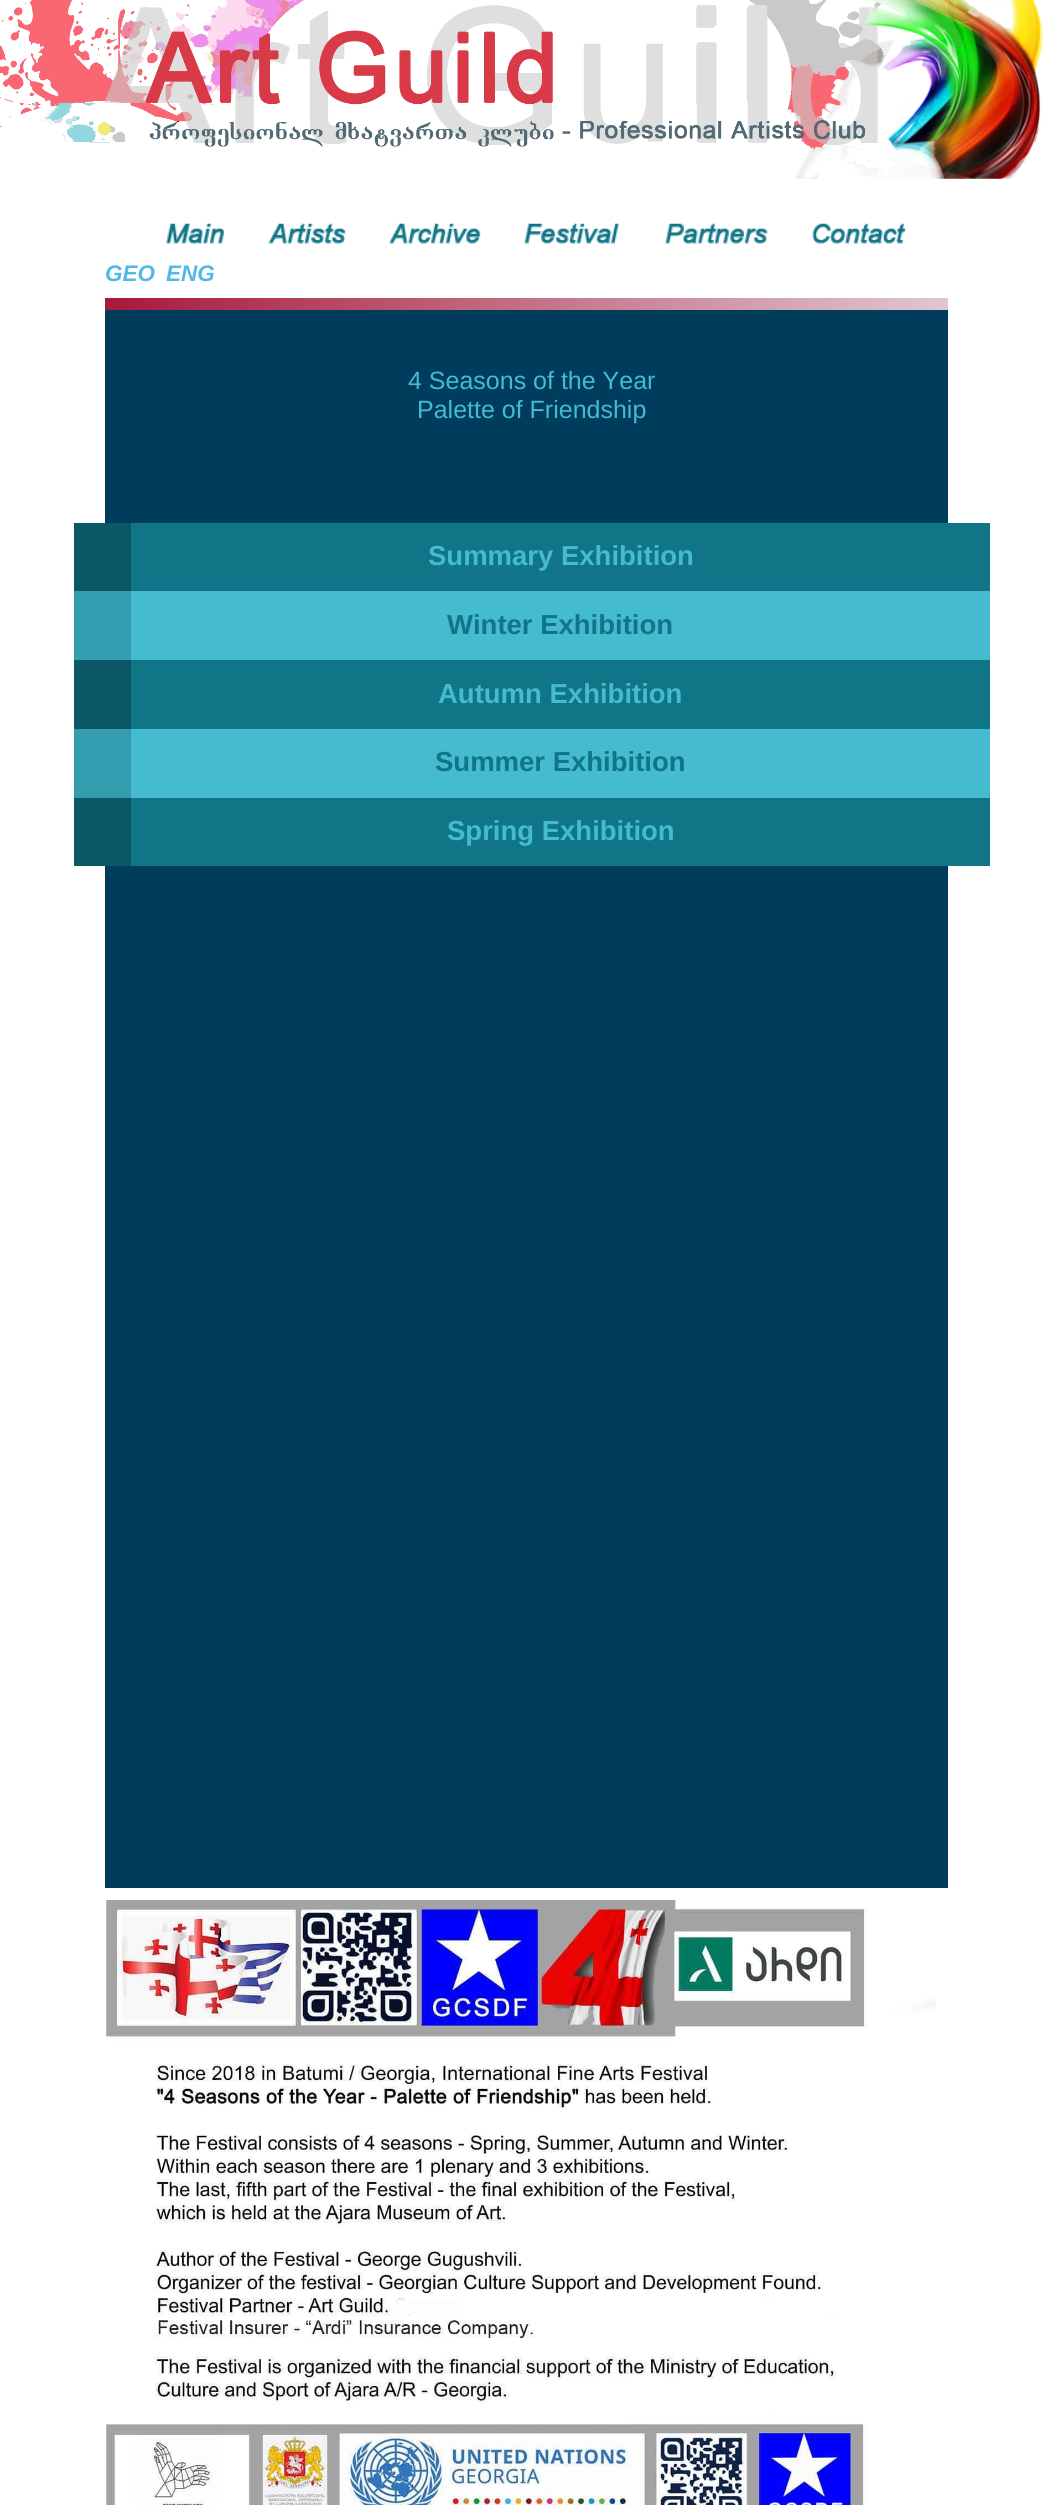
import math
import cairo

surface = cairo.ImageSurface(cairo.FORMAT_RGB24, 1052, 2505)
c = cairo.Context(surface)
options = cairo.FontOptions()
options.set_hint_metrics(cairo.HINT_METRICS_OFF)
options.set_hint_style(cairo.HINT_STYLE_NONE)
c.set_font_options(options)
c.set_miter_limit(4)
def C(code):
 c.set_source_rgb(*(v / 255 for v in bytes.fromhex(code[-6:])))
def F(family, size, italic, bold):
 c.select_font_face(family, cairo.FONT_SLANT_ITALIC if italic else cairo.FONT_SLANT_NORMAL, cairo.FONT_WEIGHT_BOLD if bold else cairo.FONT_WEIGHT_NORMAL)
 c.set_font_size(size)
def T(x, y, s):
 c.move_to(x, y)
 c.show_text(s)
def R(x, y, w, h):
 c.rectangle(x, y, w, h)
 c.fill()
def I(path, x, y, w, h):
 c.save()
 c.set_source_surface(cairo.ImageSurface.create_from_png(path), x, y)
 c.rectangle(x, y, w, h)
 c.fill()
 c.restore()
C('ffffff')
c.paint()
I('1.png',0,0,1044,179)
I('2.png',166,223,58,21)
I('3.png',268,223,78,21)
I('4.png',389,223,92,21)
I('5.png',524,223,95,21)
I('6.png',665,223,103,21)
I('7.png',812,223,94,21)
F('Liberation Sans',22.5,1,1)
C('54b7e9')
T(105,281,'GEO')
T(166,281,'ENG')
gradient = cairo.LinearGradient(948,304,105,304)
gradient.add_color_stop_rgba(0,0.878,0.78,0.816,1)
gradient.add_color_stop_rgba(1,0.659,0.094,0.231,1)
c.set_source(gradient)
R(105,298,843,12)
C('003d5c')
R(105,310,843,1578)
F('Liberation Sans',25,0,0)
C('44bbcf')
T(408,389,'4 Seasons of the Year')
T(417,418,'Palette of Friendship')
C('0a5865')
R(74,523,57,68)
C('107587')
R(131,523,859,68)
F('Liberation Sans',27.5,0,1)
C('44bbcf')
T(428,565,'Summary Exhibition')
C('349db0')
R(74,591,57,69)
C('44bbcf')
R(131,591,859,69)
C('107587')
T(447,634,'Winter Exhibition')
C('0a5865')
R(74,660,57,69)
C('107587')
R(131,660,859,69)
C('44bbcf')
T(438,703,'Autumn Exhibition')
C('349db0')
R(74,729,57,69)
C('44bbcf')
R(131,729,859,69)
C('107587')
T(435,771,'Summer Exhibition')
C('0a5865')
R(74,798,57,68)
C('107587')
R(131,798,859,68)
C('44bbcf')
T(447,840,'Spring Exhibition')
I('8.png',106,1900,830,605)
surface.write_to_png('o.png')
